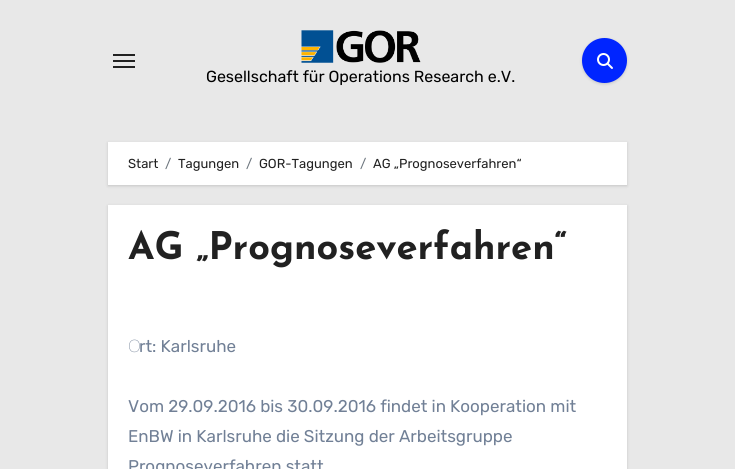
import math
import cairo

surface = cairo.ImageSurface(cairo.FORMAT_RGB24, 735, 469)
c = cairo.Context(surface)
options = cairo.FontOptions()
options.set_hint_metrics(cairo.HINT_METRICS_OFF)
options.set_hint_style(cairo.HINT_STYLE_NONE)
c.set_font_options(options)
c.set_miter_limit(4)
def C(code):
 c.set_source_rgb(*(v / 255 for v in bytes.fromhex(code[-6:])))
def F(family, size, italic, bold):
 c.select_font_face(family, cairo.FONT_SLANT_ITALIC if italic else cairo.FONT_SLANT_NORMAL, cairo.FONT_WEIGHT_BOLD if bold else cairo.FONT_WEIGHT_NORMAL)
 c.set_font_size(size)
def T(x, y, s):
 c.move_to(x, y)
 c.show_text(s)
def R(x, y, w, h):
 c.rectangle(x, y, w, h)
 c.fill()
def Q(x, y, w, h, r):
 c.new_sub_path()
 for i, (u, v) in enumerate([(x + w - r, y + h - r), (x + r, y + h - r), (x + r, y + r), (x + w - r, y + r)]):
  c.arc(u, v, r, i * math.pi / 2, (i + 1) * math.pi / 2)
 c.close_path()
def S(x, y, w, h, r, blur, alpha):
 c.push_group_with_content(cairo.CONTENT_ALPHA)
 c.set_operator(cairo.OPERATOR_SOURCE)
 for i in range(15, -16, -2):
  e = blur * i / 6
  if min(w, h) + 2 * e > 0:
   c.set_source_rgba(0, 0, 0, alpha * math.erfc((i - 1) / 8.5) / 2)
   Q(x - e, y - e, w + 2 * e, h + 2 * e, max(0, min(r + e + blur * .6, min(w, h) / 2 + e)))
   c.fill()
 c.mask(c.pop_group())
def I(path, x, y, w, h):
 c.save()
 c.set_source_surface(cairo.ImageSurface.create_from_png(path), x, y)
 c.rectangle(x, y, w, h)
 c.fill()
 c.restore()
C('e8e8e8')
c.paint()
C('212121')
R(113,54,22,2)
R(113,60,22,2)
R(113,66,22,2)
C('000000')
S(582,39,45,45,22.5,1.5,.15)
C('0025ff')
c.arc(604.5,60.5,22.5,0,2 * math.pi)
c.fill()
I('1.png',597,53,16,16)
I('2.png',301,30,120,33)
F('Rubik Light',16,0,0)
C('000000')
T(206,82,'Gesellschaft für Operations Research e.V.')
C('000000')
S(108,143,519,43,0,1.5,.15)
C('ffffff')
R(108,142,519,43)
F('Rubik Light',13,0,0)
C('212121')
T(128,168,'Start')
C('6c757d')
T(165,168,'/')
C('212121')
T(178,168,'Tagungen')
C('6c757d')
T(246,168,'/')
C('212121')
T(259,168,'GOR-Tagungen')
C('6c757d')
T(360,168,'/')
C('212121')
T(373,168,'AG „Prognoseverfahren“')
C('000000')
S(108,206,519,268,0,1.5,.15)
C('ffffff')
R(108,205,519,264)
F('Josefin Sans',38,0,1)
C('212121')
T(128,259,'AG „Prognoseverfahren“')
F('Noto Sans Thin',17,0,0)
C('718096')
T(128,352,'O')
F('Rubik Light',17,0,0)
T(139,352,'rt: Karlsruhe')
T(128,412,'Vom 29.09.2016 bis 30.09.2016 findet in Kooperation mit')
T(128,442,'EnBW in Karlsruhe die Sitzung der Arbeitsgruppe')
T(128,472,'Prognoseverfahren statt')
surface.write_to_png('o.png')
